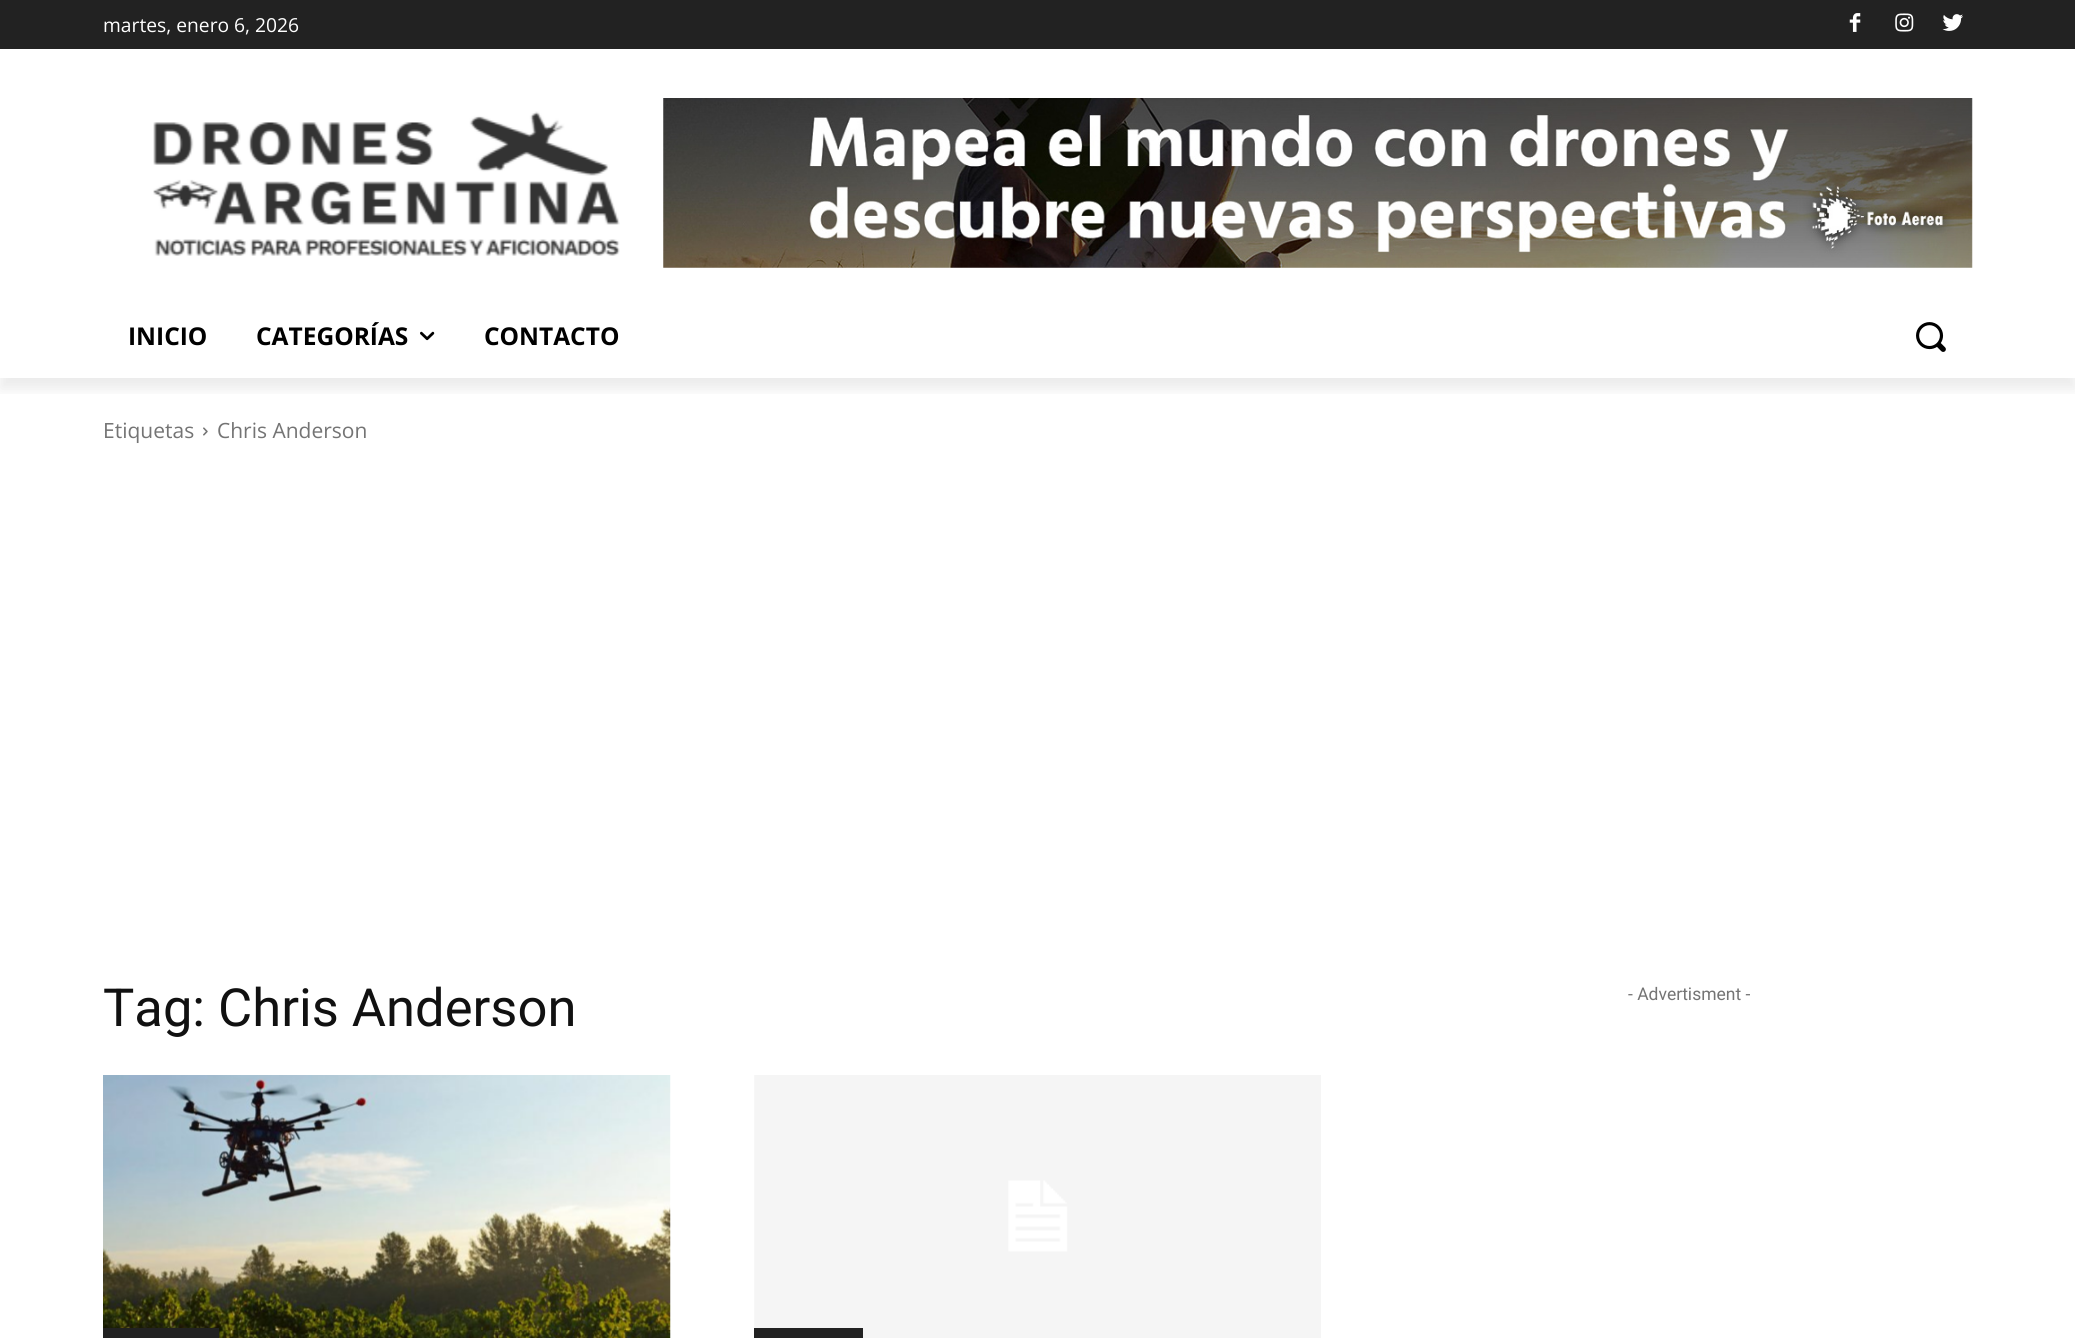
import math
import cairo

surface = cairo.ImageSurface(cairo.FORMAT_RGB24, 2075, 1338)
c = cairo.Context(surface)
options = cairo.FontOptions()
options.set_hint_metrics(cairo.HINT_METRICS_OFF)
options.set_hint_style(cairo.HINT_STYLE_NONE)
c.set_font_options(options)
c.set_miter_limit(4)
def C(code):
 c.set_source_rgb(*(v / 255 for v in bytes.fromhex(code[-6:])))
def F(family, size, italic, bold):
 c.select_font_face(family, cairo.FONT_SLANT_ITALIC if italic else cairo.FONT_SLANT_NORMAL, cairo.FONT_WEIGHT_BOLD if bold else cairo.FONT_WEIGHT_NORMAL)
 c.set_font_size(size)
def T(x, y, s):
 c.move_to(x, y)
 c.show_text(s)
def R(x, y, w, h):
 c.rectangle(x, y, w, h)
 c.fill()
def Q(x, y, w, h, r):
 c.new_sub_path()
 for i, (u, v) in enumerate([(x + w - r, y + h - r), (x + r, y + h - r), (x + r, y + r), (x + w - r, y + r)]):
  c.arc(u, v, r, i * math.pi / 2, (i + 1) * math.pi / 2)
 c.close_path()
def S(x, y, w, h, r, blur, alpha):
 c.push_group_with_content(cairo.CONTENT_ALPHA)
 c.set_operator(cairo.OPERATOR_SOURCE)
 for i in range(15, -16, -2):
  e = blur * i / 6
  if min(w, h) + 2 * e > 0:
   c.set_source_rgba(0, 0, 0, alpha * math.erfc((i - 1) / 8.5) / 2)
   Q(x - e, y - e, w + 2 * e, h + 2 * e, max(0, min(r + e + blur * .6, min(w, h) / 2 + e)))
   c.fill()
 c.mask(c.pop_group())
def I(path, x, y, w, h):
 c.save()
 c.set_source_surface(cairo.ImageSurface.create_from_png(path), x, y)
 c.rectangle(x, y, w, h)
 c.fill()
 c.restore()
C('ffffff')
c.paint()
C('222222')
R(0,0,2075,49)
I('1.png',1849,13,12,19)
I('2.png',1895,13,19,19)
I('3.png',1942,14,21,17)
I('4.png',153,111,467,145)
I('5.png',663,98,1310,170)
c.save()
c.rectangle(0,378,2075,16)
c.clip()
C('000000')
S(0,11,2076,378,0,7,.08)
c.restore()
F('Open Sans',19.25,0,0)
C('ffffff')
T(103,32,'martes, enero 6, 2026')
F('Open Sans',24.5,0,1)
C('000000')
T(128,345,'INICIO')
T(256,345,'CATEGORÍAS')
I('6.png',420,331,15,10)
T(484,345,'CONTACTO')
I('7.png',1916,322,30,30)
F('Open Sans',21,0,0)
C('747474')
T(103,438,'Etiquetas')
I('8.png',203,427,5,9)
T(217,438,'Chris Anderson')
F('Roboto',52.5,0,0)
C('111111')
T(103,1026,'Tag: Chris Anderson')
I('9.png',103,1075,568,263)
C('222222')
R(103,1328,116,10)
I('10.png',754,1075,567,263)
R(754,1328,109,10)
F('Roboto',17.5,0,0)
C('747474')
T(1628,1000,'- Advertisment -')
surface.write_to_png('o.png')
